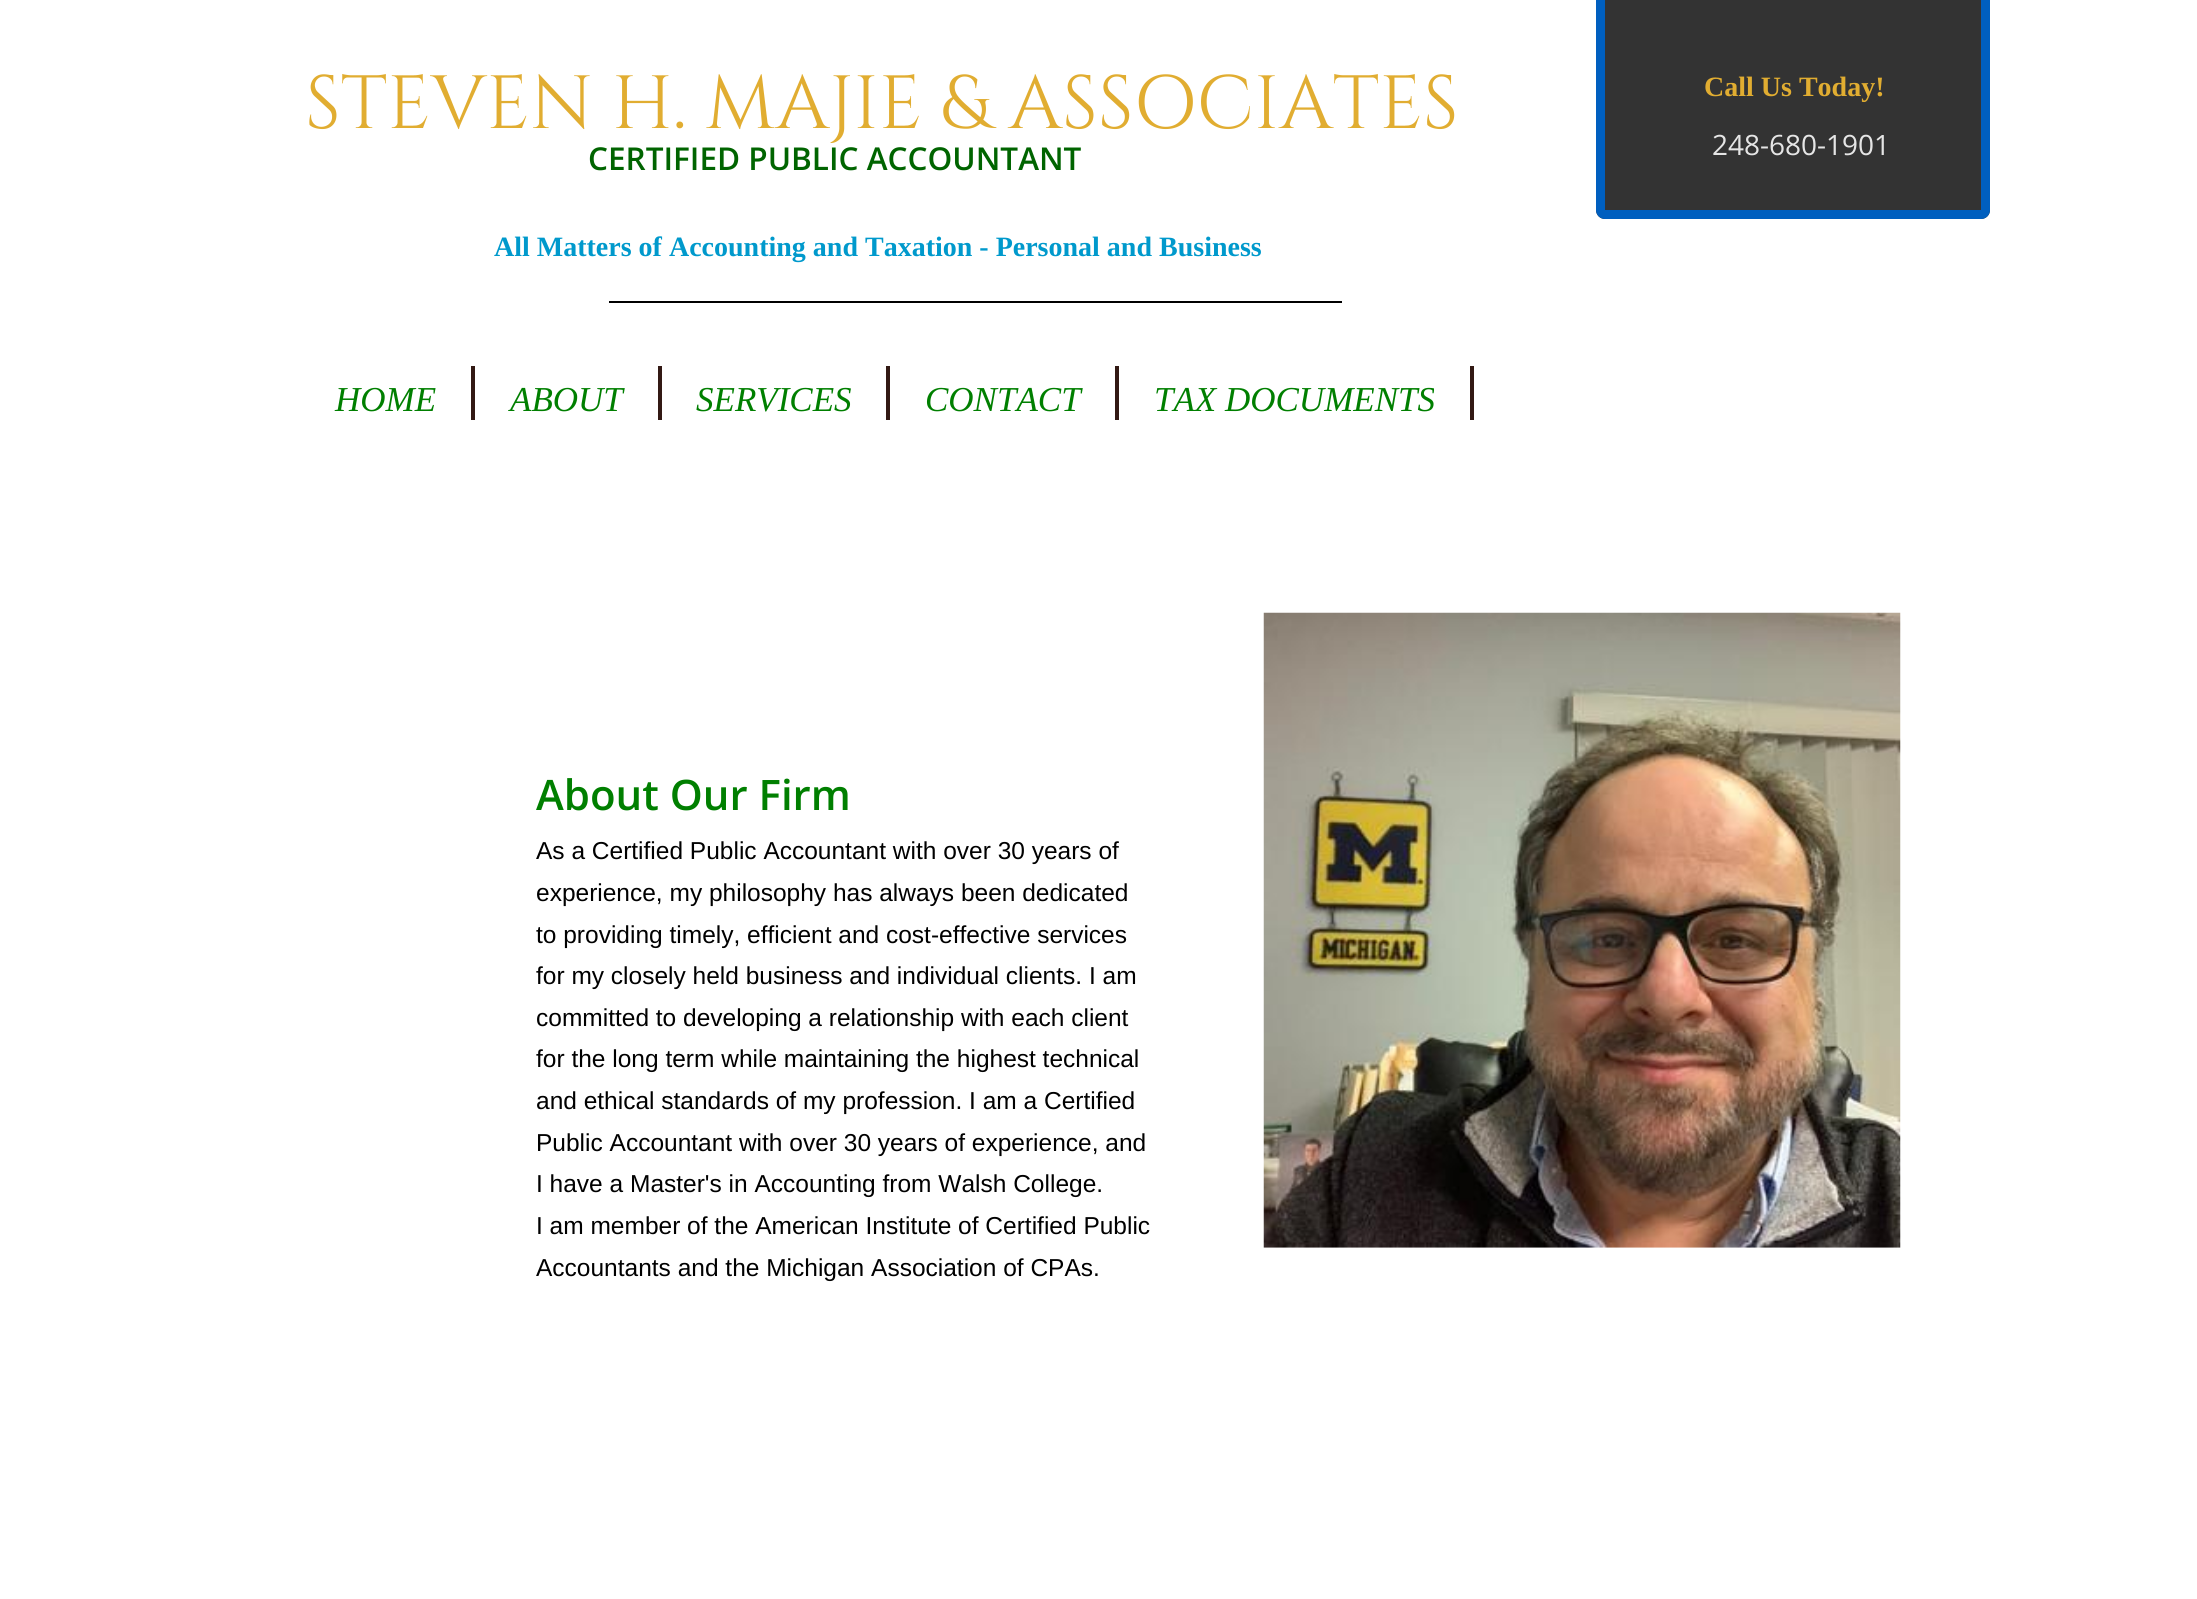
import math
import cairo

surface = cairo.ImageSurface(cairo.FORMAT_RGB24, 2197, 1599)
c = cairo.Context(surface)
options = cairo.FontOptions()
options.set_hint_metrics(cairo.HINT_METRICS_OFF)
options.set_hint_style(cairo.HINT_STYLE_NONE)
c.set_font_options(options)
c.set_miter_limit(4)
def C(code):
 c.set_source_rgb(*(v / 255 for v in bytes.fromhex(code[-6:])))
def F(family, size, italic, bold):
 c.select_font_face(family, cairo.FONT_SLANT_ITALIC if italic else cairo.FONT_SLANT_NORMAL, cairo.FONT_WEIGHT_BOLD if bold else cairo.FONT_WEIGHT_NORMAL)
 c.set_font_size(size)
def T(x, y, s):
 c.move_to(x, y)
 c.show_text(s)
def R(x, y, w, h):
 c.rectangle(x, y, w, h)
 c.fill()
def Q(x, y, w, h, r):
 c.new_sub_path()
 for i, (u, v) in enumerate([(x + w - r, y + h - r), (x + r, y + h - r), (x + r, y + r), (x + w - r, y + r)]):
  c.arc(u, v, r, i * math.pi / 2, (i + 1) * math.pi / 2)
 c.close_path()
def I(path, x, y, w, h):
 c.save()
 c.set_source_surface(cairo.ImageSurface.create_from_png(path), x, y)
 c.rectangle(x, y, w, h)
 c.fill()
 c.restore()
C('ffffff')
c.paint()
F('Cinzel',75.25,0,0)
C('e1ad31')
T(305,128,'STEVEN H. MAJIE & ASSOCIATES')
F('Open Sans SemiBold',31.5,0,0)
C('006400')
T(588,170,'CERTIFIED PUBLIC ACCOUNTANT')
C('333333')
c.new_path()
c.move_to(1596,0)
c.line_to(1990,0)
c.line_to(1990,210)
c.curve_to(1990,215,1986,219,1981,219)
c.line_to(1605,219)
c.curve_to(1600,219,1596,215,1596,210)
c.close_path()
c.fill()
Q(1600.5,-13.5,385,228,4.5)
C('005fbf')
c.set_line_width(9)
c.stroke()
F('Liberation Serif',28,0,1)
C('e1ad31')
T(1704,96,'Call Us Today!')
F('Open Sans',28,0,0)
C('e5e5e5')
T(1712,155,'248-680-1901')
F('Liberation Serif',28,0,1)
C('0099cc')
T(494,256,'All Matters of Accounting and Taxation - Personal and Business')
C('000000')
R(609,301,733,2)
C('321914')
R(471,366,4,54)
F('Liberation Serif',35,1,0)
C('007f00')
T(335,411,'HOME')
C('321914')
R(658,366,4,54)
C('007f00')
T(510,411,'ABOUT')
C('321914')
R(886,366,4,54)
C('007f00')
T(696,411,'SERVICES')
C('321914')
R(1115,366,4,54)
C('007f00')
T(925,411,'CONTACT')
C('321914')
R(1470,366,4,54)
C('007f00')
T(1154,411,'TAX DOCUMENTS')
F('Open Sans SemiBold',42,0,0)
T(536,810,'About Our Firm')
F('Liberation Sans',24.5,0,0)
C('000000')
T(536,859,'As a Certified Public Accountant with over 30 years of')
T(536,901,'experience, my philosophy has always been dedicated')
T(536,943,'to providing timely, efficient and cost-effective services')
T(536,984,'for my closely held business and individual clients. I am')
T(536,1026,'committed to developing a relationship with each client')
T(536,1067,'for the long term while maintaining the highest technical')
T(536,1109,'and ethical standards of my profession. I am a Certified')
T(536,1151,'Public Accountant with over 30 years of experience, and')
T(536,1192,'I have a Master\'s in Accounting from Walsh College.')
T(536,1234,'I am member of the American Institute of Certified Public')
T(536,1276,'Accountants and the Michigan Association of CPAs.')
I('1.png',1263,612,638,636)
surface.write_to_png('o.png')
